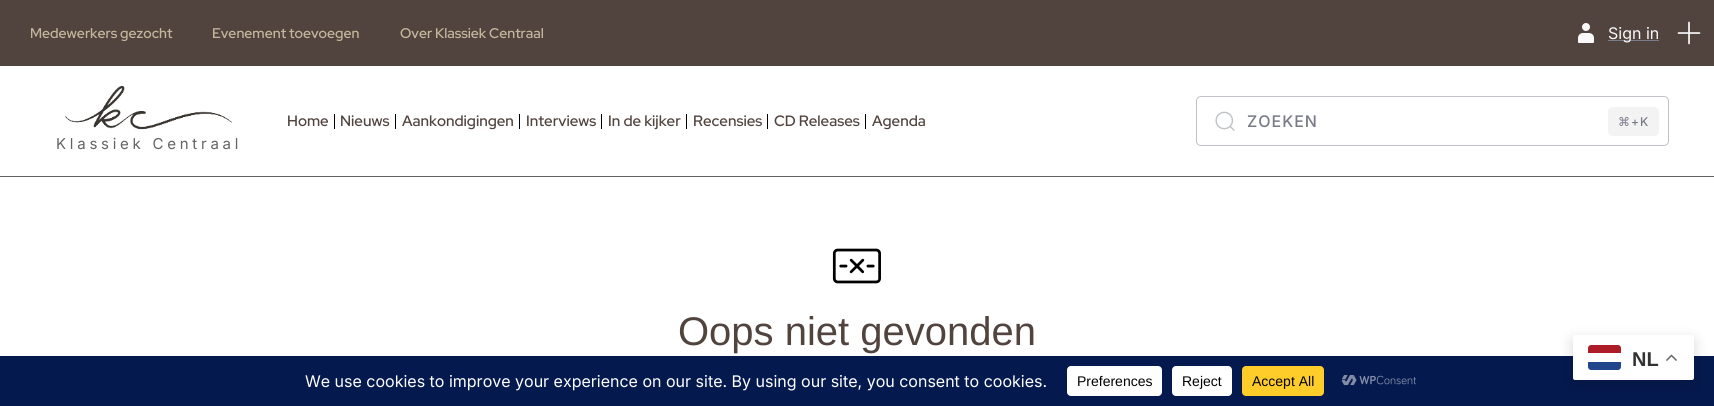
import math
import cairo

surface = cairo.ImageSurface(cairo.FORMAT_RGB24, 1714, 406)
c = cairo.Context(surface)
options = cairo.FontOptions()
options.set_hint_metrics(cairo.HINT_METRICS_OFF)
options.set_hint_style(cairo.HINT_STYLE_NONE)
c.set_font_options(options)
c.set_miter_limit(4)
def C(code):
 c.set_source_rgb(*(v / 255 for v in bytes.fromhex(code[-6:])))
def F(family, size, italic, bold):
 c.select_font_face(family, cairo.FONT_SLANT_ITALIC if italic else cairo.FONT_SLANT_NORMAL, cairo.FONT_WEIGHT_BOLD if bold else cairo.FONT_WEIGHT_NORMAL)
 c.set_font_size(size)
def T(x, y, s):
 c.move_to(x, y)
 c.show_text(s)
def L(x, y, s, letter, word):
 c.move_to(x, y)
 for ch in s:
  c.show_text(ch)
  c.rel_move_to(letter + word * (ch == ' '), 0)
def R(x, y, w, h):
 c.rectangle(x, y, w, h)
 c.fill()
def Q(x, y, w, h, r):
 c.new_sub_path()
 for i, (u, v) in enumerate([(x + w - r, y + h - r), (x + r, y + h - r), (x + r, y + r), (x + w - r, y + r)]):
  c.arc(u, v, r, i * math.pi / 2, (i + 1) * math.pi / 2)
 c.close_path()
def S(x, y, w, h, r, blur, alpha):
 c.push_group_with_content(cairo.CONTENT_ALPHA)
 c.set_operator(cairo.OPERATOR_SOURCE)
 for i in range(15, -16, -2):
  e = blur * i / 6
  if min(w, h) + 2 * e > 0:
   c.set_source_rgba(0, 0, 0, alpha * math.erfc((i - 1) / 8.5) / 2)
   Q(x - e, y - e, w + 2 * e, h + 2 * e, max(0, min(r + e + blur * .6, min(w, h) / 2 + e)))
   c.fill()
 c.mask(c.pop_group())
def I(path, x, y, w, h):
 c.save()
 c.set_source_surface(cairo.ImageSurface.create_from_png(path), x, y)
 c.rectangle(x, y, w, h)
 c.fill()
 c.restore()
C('ffffff')
c.paint()
C('51443f')
R(0,0,1714,66)
F('Red Hat Display SemiBold',14,0,0)
C('c4b79c')
T(30,38,'Medewerkers gezocht')
T(212,38,'Evenement toevoegen')
T(400,38,'Over Klassiek Centraal')
I('1.png',1578,23,16,20)
C('797a88')
R(1608,40,51,1)
F('Inter',16,0,0)
C('f9f9f9')
T(1608,39,'Sign in')
I('2.png',1677,21,24,24)
C('646363')
R(0,176,1714,1)
F('Red Hat Display SemiBold',15,0,0)
C('51443f')
T(287,126,'Home')
C('000000')
R(334,114,1,15)
C('51443f')
T(340,126,'Nieuws')
C('000000')
R(395,114,1,15)
C('51443f')
T(402,126,'Aankondigingen')
C('000000')
R(519,114,1,15)
C('51443f')
T(526,126,'Interviews')
C('000000')
R(601,114,1,15)
C('51443f')
T(608,126,'In de kijker')
C('000000')
R(686,114,1,15)
C('51443f')
T(693,126,'Recensies')
C('000000')
R(767,114,1,15)
C('51443f')
T(774,126,'CD Releases')
C('000000')
R(865,114,1,15)
C('51443f')
T(872,126,'Agenda')
Q(1196.5,96.5,472,49,4.5)
C('bfc3c8')
c.set_line_width(1)
c.stroke()
I('3.png',1215,111,20,20)
F('Inter Medium',16,0,0)
C('797a88')
L(1247,127,'ZOEKEN',1,0)
C('f3f3f3')
Q(1608,107,51,29,5)
c.fill()
F('DejaVu Sans',12,0,0)
C('797a88')
L(1618,126,'⌘',1,0)
F('Inter Medium',12,0,0)
L(1631,126,'+K',1,0)
I('4.png',64,86,168,44)
F('Inter',15,0,0)
C('646363')
L(56,149,'Klassiek Centraal',3.75,0)
I('5.png',832,248,49,36)
F('Liberation Sans',40,0,0)
C('51443f')
T(678,345,'Oops niet gevonden')
C('04194e')
R(0,356,1714,50)
C('000000')
S(1573,340,121,45,2,7.5,.15)
C('ffffff')
Q(1573,335,121,45,2)
c.fill()
C('21468b')
c.new_path()
c.move_to(1588,362)
c.line_to(1621,362)
c.line_to(1621,367)
c.curve_to(1621,368.5,1619.5,370,1618,370)
c.line_to(1591,370)
c.curve_to(1589.5,370,1588,368.5,1588,367)
c.close_path()
c.fill()
C('ae1c28')
c.new_path()
c.move_to(1591,345)
c.line_to(1618,345)
c.curve_to(1619.5,345,1621,346.5,1621,348)
c.line_to(1621,353)
c.line_to(1588,353)
c.line_to(1588,348)
c.curve_to(1588,346.5,1589.5,345,1591,345)
c.close_path()
c.fill()
F('Liberation Sans',20,0,1)
C('333333')
T(1632,366,'NL')
I('6.png',1666,354,11,7)
F('Inter',16,0,0)
C('ffffff')
T(305,387,'We use cookies to improve your experience on our site. By using our site, you consent to cookies.')
Q(1067,366,95,30,4)
c.fill()
F('Liberation Sans',14,0,0)
C('000000')
T(1077,386,'Preferences')
C('ffffff')
Q(1172,366,60,30,4)
c.fill()
C('000000')
T(1182,386,'Reject')
C('ffcd2a')
Q(1242,366,82,30,4)
c.fill()
C('000000')
T(1252,386,'Accept All')
I('7.png',1341,375,75,11)
surface.write_to_png('o.png')
